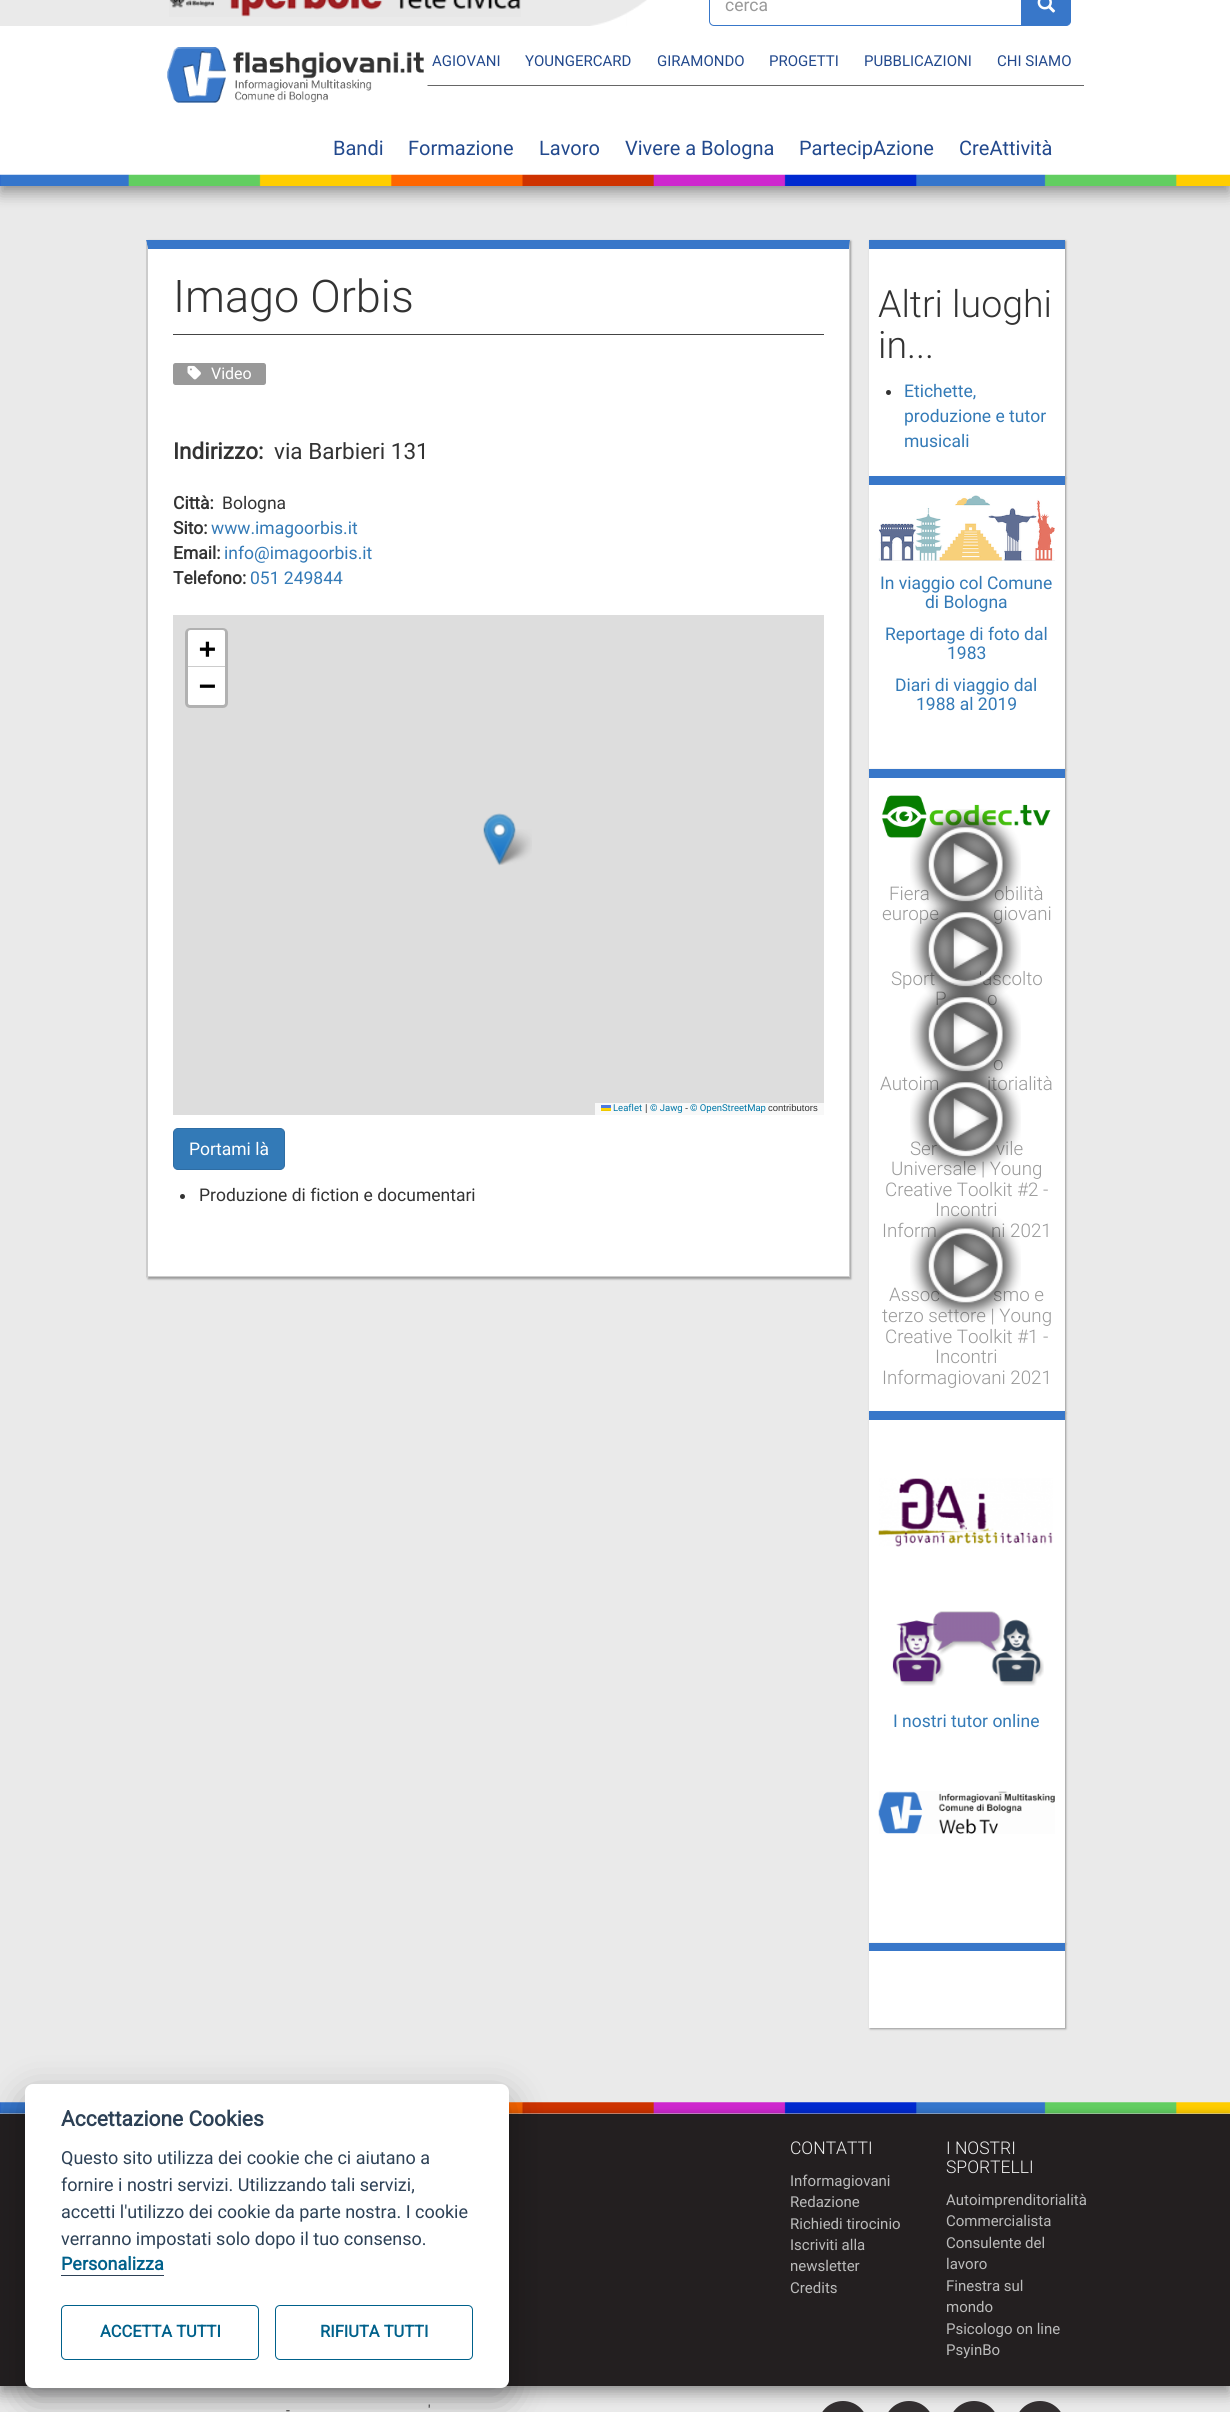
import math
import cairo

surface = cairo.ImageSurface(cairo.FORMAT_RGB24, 1230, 2412)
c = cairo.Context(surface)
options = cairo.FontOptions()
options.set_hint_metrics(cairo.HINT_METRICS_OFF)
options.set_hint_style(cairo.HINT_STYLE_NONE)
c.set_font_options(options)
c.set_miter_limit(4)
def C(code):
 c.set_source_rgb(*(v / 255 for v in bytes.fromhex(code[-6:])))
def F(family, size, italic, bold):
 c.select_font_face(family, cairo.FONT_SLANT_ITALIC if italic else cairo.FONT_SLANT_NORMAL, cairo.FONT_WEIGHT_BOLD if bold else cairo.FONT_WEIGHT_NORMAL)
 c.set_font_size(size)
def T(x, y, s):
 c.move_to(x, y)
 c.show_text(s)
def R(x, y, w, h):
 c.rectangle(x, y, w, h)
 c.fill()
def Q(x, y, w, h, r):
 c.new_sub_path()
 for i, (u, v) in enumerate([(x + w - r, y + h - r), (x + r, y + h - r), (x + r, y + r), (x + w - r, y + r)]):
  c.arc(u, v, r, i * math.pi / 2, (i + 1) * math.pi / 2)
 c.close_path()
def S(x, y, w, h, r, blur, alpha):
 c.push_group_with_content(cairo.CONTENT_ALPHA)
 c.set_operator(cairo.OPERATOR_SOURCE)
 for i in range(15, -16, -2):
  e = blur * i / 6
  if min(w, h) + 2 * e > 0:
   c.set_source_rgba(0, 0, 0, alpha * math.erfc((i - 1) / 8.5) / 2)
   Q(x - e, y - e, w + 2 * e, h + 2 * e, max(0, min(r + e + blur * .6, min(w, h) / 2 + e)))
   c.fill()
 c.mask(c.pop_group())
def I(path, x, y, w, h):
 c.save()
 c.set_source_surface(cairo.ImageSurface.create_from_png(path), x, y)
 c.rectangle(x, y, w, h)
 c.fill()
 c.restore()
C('eaeaea')
c.paint()
gradient = cairo.LinearGradient(0,-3.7,1230,-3.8)
gradient.add_color_stop_rgba(.5,0.918,0.918,0.918,1)
gradient.add_color_stop_rgba(.51,1,1,1,1)
c.set_source(gradient)
R(616,0,614,26)
I('1.png',169,0,352,17)
C('ffffff')
R(590,0,36,26)
I('2.png',584,0,63,26)
c.new_path()
c.move_to(714,-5.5)
c.line_to(1022.5,-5.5)
c.line_to(1022.5,25.5)
c.line_to(714,25.5)
c.curve_to(711.5,25.5,709.5,23.5,709.5,21)
c.line_to(709.5,-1)
c.curve_to(709.5,-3.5,711.5,-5.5,714,-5.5)
c.close_path()
C('3877c9')
c.set_line_width(1)
c.stroke()
F('Roboto',17.5,0,0)
C('999999')
T(725,11,'cerca')
C('3877c9')
c.new_path()
c.move_to(1021.5,-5.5)
c.line_to(1066,-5.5)
c.curve_to(1068.5,-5.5,1070.5,-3.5,1070.5,-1)
c.line_to(1070.5,21)
c.curve_to(1070.5,23.5,1068.5,25.5,1066,25.5)
c.line_to(1021.5,25.5)
c.close_path()
c.fill_preserve()
c.stroke()
I('3.png',1037,0,19,13)
C('000000')
S(0,94,1230,100,0,7.5,.32)
S(0,86,1230,100,0,4,.16)
C('ffffff')
R(0,26,1230,149)
C('666666')
R(427,85,657,1)
F('Roboto',15,0,0)
C('22498d')
T(432,66,'AGIOVANI')
T(525,66,'YOUNGERCARD')
T(657,66,'GIRAMONDO')
T(769,66,'PROGETTI')
T(864,66,'PUBBLICAZIONI')
T(997,66,'CHI SIAMO')
I('4.png',0,174,1230,12)
I('5.png',167,47,261,56)
F('Roboto',20,0,0)
T(333,155,'Bandi')
T(408,155,'Formazione')
T(539,155,'Lavoro')
T(625,155,'Vivere a Bologna')
T(799,155,'PartecipAzione')
T(959,155,'CreAttività')
C('999999')
S(148,241,703,1038,0,1,1)
C('ffffff')
R(148,249,701,1027)
C('3877c9')
c.new_path()
c.move_to(146,240)
c.line_to(850,240)
c.line_to(849,249)
c.line_to(148,249)
c.close_path()
c.fill()
C('cccccc')
c.new_path()
c.move_to(850,240)
c.line_to(850,1278)
c.line_to(849,1276)
c.line_to(849,249)
c.close_path()
c.fill()
R(146,1276,704,1)
c.new_path()
c.move_to(146,1278)
c.line_to(146,240)
c.line_to(148,249)
c.line_to(148,1276)
c.close_path()
c.fill()
C('444444')
R(173,334,651,1)
F('Roboto Light',45,0,0)
C('333333')
T(173,312,'Imago Orbis')
C('999999')
Q(173,363,93,22,2.5)
c.fill()
I('6.png',187,365,14,15)
F('Roboto',16,0,0)
C('ffffff')
T(211,379,'Video')
F('Roboto',22.5,0,1)
C('333333')
T(173,459,'Indirizzo:')
F('Roboto',22.5,0,0)
T(274,459,'via Barbieri 131')
F('Roboto',17.5,0,1)
T(173,509,'Città:')
F('Roboto',17.5,0,0)
T(222,509,'Bologna')
F('Roboto',17.5,0,1)
T(173,534,'Sito:')
F('Roboto',17.5,0,0)
C('337ab7')
T(211,534,'www.imagoorbis.it')
F('Roboto',17.5,0,1)
C('333333')
T(173,559,'Email:')
F('Roboto',17.5,0,0)
C('337ab7')
T(224,559,'info@imagoorbis.it')
F('Roboto',17.5,0,1)
C('333333')
T(173,584,'Telefono:')
F('Roboto',17.5,0,0)
C('337ab7')
T(250,584,'051 249844')
C('dddddd')
R(173,615,651,500)
Q(186.5,629.5,40,77,3.5)
C('b1b1b1')
c.set_line_width(3)
c.stroke()
C('ffffff')
c.new_path()
c.move_to(190.5,630)
c.line_to(222.5,630)
c.curve_to(224,630,225,631,225,632.5)
c.line_to(225,668)
c.line_to(188,668)
c.line_to(188,632.5)
c.curve_to(188,631,189,630,190.5,630)
c.close_path()
c.fill()
C('cccccc')
R(188,666,37,1)
F('DejaVu Sans Mono',28,0,1)
C('000000')
T(199,658,'+')
C('ffffff')
c.new_path()
c.move_to(188,668)
c.line_to(225,668)
c.line_to(225,702.5)
c.curve_to(225,704,224,705,222.5,705)
c.line_to(190.5,705)
c.curve_to(189,705,188,704,188,702.5)
c.close_path()
c.fill()
C('000000')
T(199,695,'−')
C('f8f8f8')
R(595,1103,229,12)
I('7.png',601,1105,10,6)
F('Roboto',9.5,0,0)
C('0078a8')
T(613,1111,'Leaflet')
F('Liberation Sans',9.5,0,0)
C('333333')
T(645,1111,'|')
F('Roboto',9.5,0,0)
C('0078a8')
T(650,1111,'© Jawg')
F('Liberation Sans',9.5,0,0)
C('333333')
T(685,1111,'-')
F('Roboto',9.5,0,0)
C('0078a8')
T(690,1111,'© OpenStreetMap')
F('Liberation Sans',9.5,0,0)
C('333333')
T(768,1111,'contributors')
I('9.png',495,829,37,36)
I('8.png',483,813,33,53)
C('337ab7')
Q(173.5,1128.5,111,41,4.5)
c.fill_preserve()
C('2e6da4')
c.set_line_width(1)
c.stroke()
F('Roboto',17.5,0,0)
C('ffffff')
T(189,1155,'Portami là')
C('333333')
c.new_path()
c.arc(182.5,1196.5,2.5,0,2 * math.pi)
c.fill()
T(199,1201,'Produzione di fiction e documentari')
C('999999')
S(870,241,196,237,0,1,1)
C('ffffff')
R(869,249,196,227)
C('3877c9')
R(869,240,196,9)
F('Roboto Light',37.5,0,0)
C('333333')
T(878,317,'Altri luoghi')
T(878,358,'in...')
c.new_path()
c.arc(888.5,392.5,2.5,0,2 * math.pi)
c.fill()
F('Roboto',17.5,0,0)
C('337ab7')
T(904,397,'Etichette,')
T(904,422,'produzione e tutor')
T(904,447,'musicali')
C('999999')
S(870,478,196,292,0,1,1)
C('ffffff')
R(869,485,196,284)
C('3877c9')
R(869,476,196,9)
I('10.png',878,495,177,66)
C('337ab7')
T(880,589,'In viaggio col Comune')
T(925,608,'di Bologna')
T(885,640,'Reportage di foto dal')
T(947,659,'1983')
T(895,691,'Diari di viaggio dal')
T(916,710,'1988 al 2019')
C('999999')
S(870,770,196,643,0,1,1)
C('ffffff')
R(869,778,196,633)
C('3877c9')
R(869,769,196,9)
I('11.png',881,795,170,43)
F('Roboto Light',18.75,0,0)
C('999999')
T(889,900,'Fiera')
T(994,900,'obilità')
T(882,920,'europe')
T(993,920,'giovani')
I('12.png',910,809,111,111)
T(891,985,'Sport')
T(979,985,'\'ascolto')
T(935,1005,'P')
T(987,1005,'o')
I('13.png',910,894,111,111)
T(993,1070,'o')
T(880,1090,'Autoim')
T(987,1090,'itorialità')
I('14.png',910,979,111,111)
T(910,1155,'Ser')
T(996,1155,'vile')
T(891,1175,'Universale | Young')
I('15.png',910,1064,111,111)
T(885,1196,'Creative Toolkit #2 -')
T(935,1216,'Incontri')
T(882,1237,'Inform')
T(991,1237,'ni 2021')
T(889,1301,'Assoc')
T(993,1301,'smo e')
T(882,1322,'terzo settore | Young')
I('16.png',910,1210,111,111)
T(885,1343,'Creative Toolkit #1 -')
T(935,1363,'Incontri')
T(882,1384,'Informagiovani 2021')
C('999999')
S(870,1413,196,531,0,1,1)
C('ffffff')
R(869,1420,196,523)
C('3877c9')
R(869,1411,196,9)
I('17.png',878,1478,175,69)
I('18.png',892,1611,152,75)
F('Roboto',17.5,0,0)
C('337ab7')
T(893,1727,'I nostri tutor online')
I('19.png',878,1791,177,43)
C('999999')
S(870,1944,196,85,0,1,1)
C('ffffff')
R(869,1951,196,77)
C('3877c9')
R(869,1943,196,8)
I('20.png',0,2102,1230,12)
C('000000')
S(0,2121,1230,273,0,7.5,.32)
S(0,2114,1230,272,0,4,.16)
C('231f20')
R(0,2114,1230,272)
F('Roboto Light',17.5,0,0)
C('eeeeee')
T(790,2154,'CONTATTI')
F('Roboto',15,0,0)
C('bbbbbb')
T(790,2186,'Informagiovani')
T(790,2207,'Redazione')
T(790,2229,'Richiedi tirocinio')
T(790,2250,'Iscriviti alla')
T(790,2271,'newsletter')
T(790,2293,'Credits')
F('Roboto Light',17.5,0,0)
C('eeeeee')
T(946,2154,'I NOSTRI')
T(946,2173,'SPORTELLI')
F('Roboto',15,0,0)
C('bbbbbb')
T(946,2205,'Autoimprenditorialità')
T(946,2226,'Commercialista')
T(946,2248,'Consulente del')
T(946,2269,'lavoro')
T(946,2291,'Finestra sul')
T(946,2312,'mondo')
T(946,2334,'Psicologo on line')
T(946,2355,'PsyinBo')
F('Roboto',14,0,0)
C('333333')
T(428,2415,'\'')
T(286,2415,'-')
C('332f30')
Q(818,2401,50,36,25)
c.fill()
Q(884,2401,50,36,25)
c.fill()
Q(949,2401,50,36,25)
c.fill()
Q(1015,2401,50,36,25)
c.fill()
C('020203')
S(25,2096,484,304,8,19,.28)
C('ffffff')
Q(25,2084,484,304,8)
c.fill()
F('Roboto',21,0,1)
C('2d4156')
T(61,2126,'Accettazione Cookies')
F('Roboto',18,0,0)
T(61,2164,'Questo sito utilizza dei cookie che ci aiutano a')
T(61,2191,'fornire i nostri servizi. Utilizzando tali servizi,')
T(61,2218,'accetti l\'utilizzo dei cookie da parte nostra. I cookie')
T(61,2245,'verranno impostati solo dopo il tuo consenso.')
R(61,2275,103,1)
F('Roboto',18,0,1)
C('00618b')
T(61,2270,'Personalizza')
Q(61.5,2305.5,197,54,4.5)
c.stroke()
F('Roboto',16.5,0,1)
T(100,2337,'ACCETTA TUTTI')
Q(275.5,2305.5,197,54,4.5)
c.stroke()
T(320,2337,'RIFIUTA TUTTI')
surface.write_to_png('o.png')
